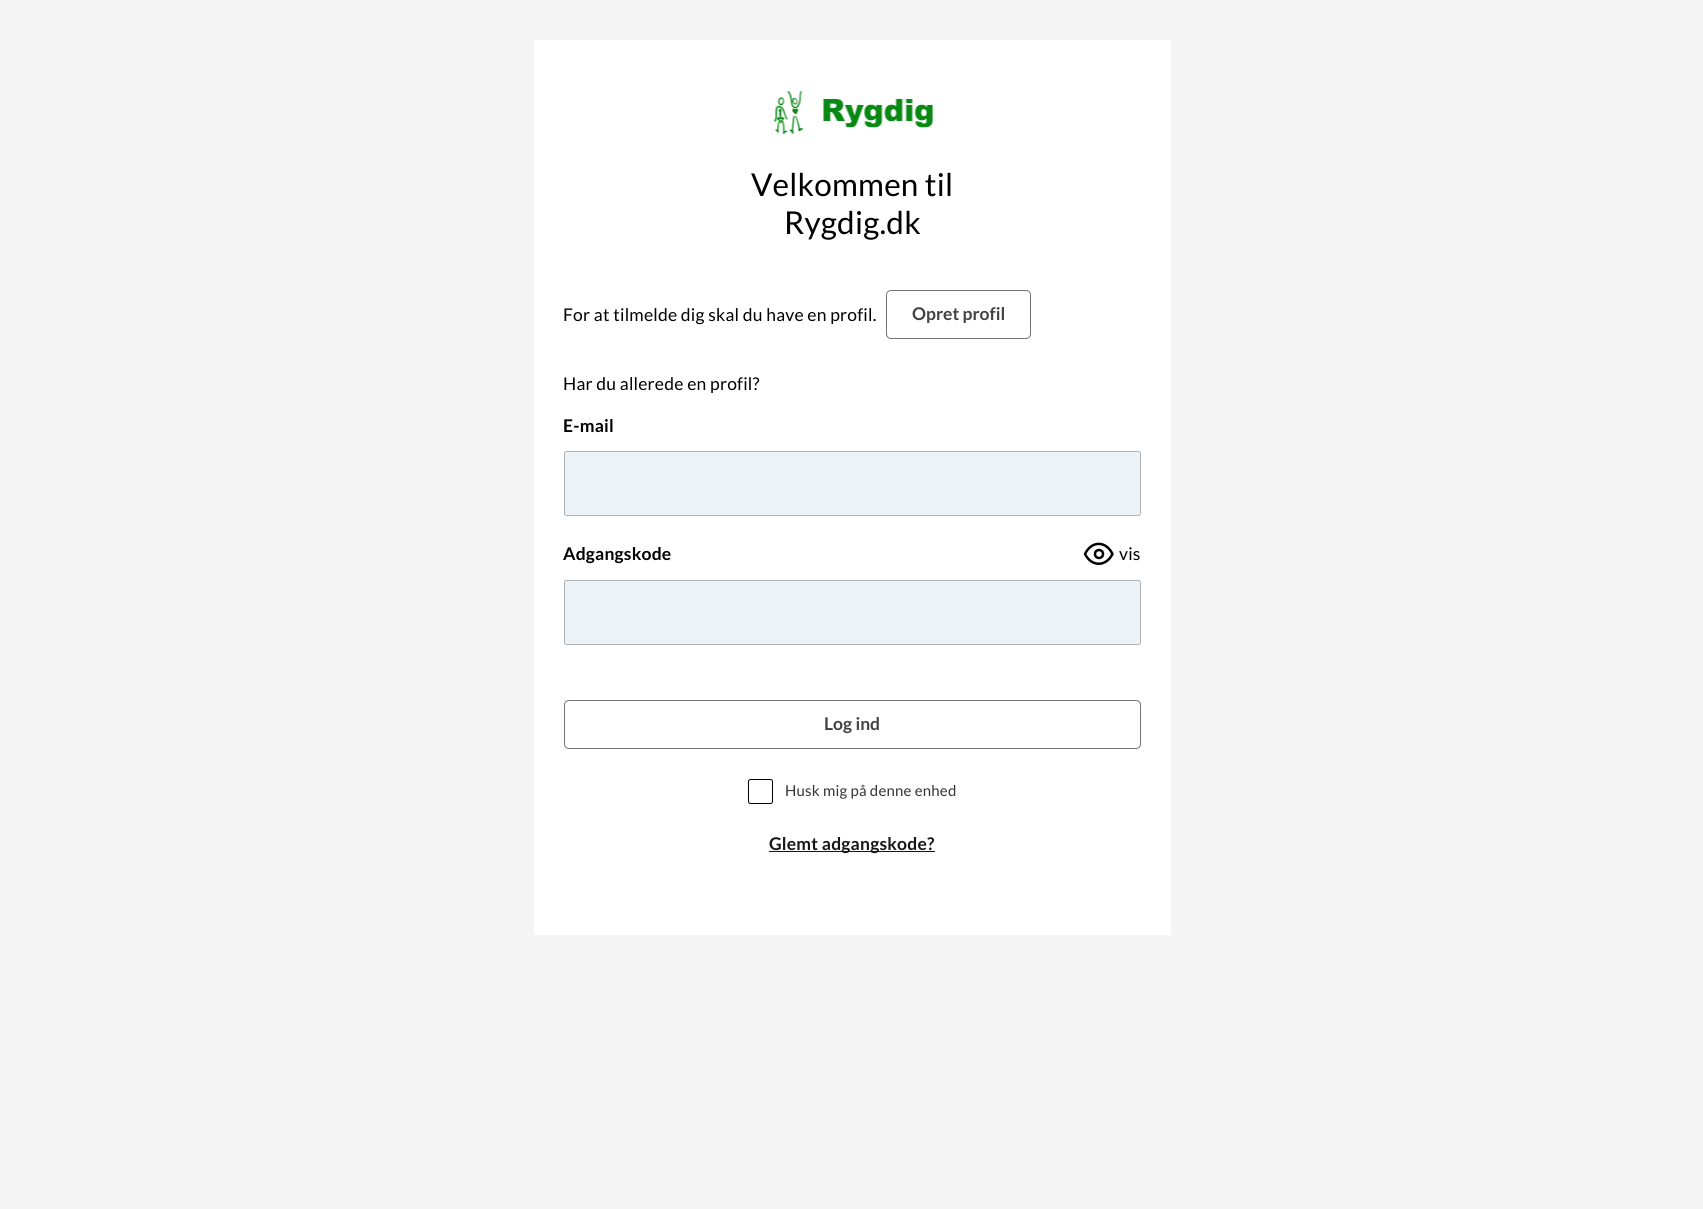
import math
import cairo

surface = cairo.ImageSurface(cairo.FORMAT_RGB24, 1703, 1209)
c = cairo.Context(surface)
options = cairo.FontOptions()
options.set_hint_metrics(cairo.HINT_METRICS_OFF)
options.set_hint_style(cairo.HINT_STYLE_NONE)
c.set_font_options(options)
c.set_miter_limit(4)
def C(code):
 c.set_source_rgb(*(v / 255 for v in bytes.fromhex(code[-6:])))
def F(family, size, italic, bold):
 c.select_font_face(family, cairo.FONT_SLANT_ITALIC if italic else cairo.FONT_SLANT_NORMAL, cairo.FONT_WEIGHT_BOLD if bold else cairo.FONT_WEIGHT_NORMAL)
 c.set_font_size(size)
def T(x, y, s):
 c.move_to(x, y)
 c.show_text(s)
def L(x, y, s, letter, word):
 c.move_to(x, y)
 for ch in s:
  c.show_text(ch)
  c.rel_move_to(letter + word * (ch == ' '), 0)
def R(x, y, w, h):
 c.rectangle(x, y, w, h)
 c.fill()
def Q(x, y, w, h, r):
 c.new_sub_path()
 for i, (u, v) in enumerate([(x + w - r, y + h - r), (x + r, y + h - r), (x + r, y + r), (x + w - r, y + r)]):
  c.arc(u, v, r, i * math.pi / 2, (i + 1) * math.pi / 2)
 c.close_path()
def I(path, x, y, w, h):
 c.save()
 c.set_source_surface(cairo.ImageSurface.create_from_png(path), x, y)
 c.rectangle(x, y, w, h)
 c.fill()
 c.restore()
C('f4f4f4')
c.paint()
C('ffffff')
R(534,40,637,895)
I('1.png',773,91,161,43)
F('Lato',31.5,0,0)
C('000000')
L(751,196,'Velkommen til',.2,0)
L(784,234,'Rygdig.dk',.2,0)
F('Lato',17.5,0,0)
L(563,321,'For at tilmelde dig skal du have en profil.',.2,0)
Q(886.5,290.5,144,48,4.5)
C('757575')
c.set_line_width(1)
c.stroke()
F('Lato',17.5,0,1)
C('424242')
T(912,320,'Opret profil')
F('Lato',17.5,0,0)
C('000000')
L(563,390,'Har du allerede en profil?',.2,0)
F('Lato',17.5,0,1)
L(563,432,'E-mail',.2,0)
C('edf2f7')
Q(564,451,577,65,2.5)
c.fill()
Q(564.5,451.5,576,64,2)
c.set_source_rgba(0.141,0.11,0.082,0.3)
c.stroke()
C('000000')
L(563,560,'Adgangskode',.2,0)
c.new_path()
c.move_to(1085,554)
c.curve_to(1091.5,540.5,1106,540.5,1112.5,554)
c.curve_to(1106,567,1091.5,567,1085,554)
c.close_path()
c.set_line_width(2.5)
c.set_line_cap(cairo.LINE_CAP_ROUND)
c.set_line_join(cairo.LINE_JOIN_ROUND)
c.stroke()
c.arc(1099,554,4,0,2 * math.pi)
c.set_line_cap(cairo.LINE_CAP_BUTT)
c.set_line_join(cairo.LINE_JOIN_MITER)
c.stroke()
F('Lato',17.5,0,0)
L(1119,560,'vis',.2,0)
C('edf2f7')
Q(564,580,577,65,2.5)
c.fill()
Q(564.5,580.5,576,64,2)
c.set_source_rgba(0.141,0.11,0.082,0.3)
c.set_line_width(1)
c.stroke()
Q(564.5,700.5,576,48,4.5)
C('757575')
c.stroke()
F('Lato',17.5,0,1)
C('424242')
T(824,730,'Log ind')
Q(748.5,779.5,24,24,2)
C('000000')
c.stroke()
F('Lato',15,0,0)
C('333333')
L(785,796,'Husk mig på denne enhed',.2,0)
C('171717')
R(769,851,166,1)
F('Lato',17.5,0,1)
L(769,850,'Glemt adgangskode?',.2,0)
surface.write_to_png('o.png')
